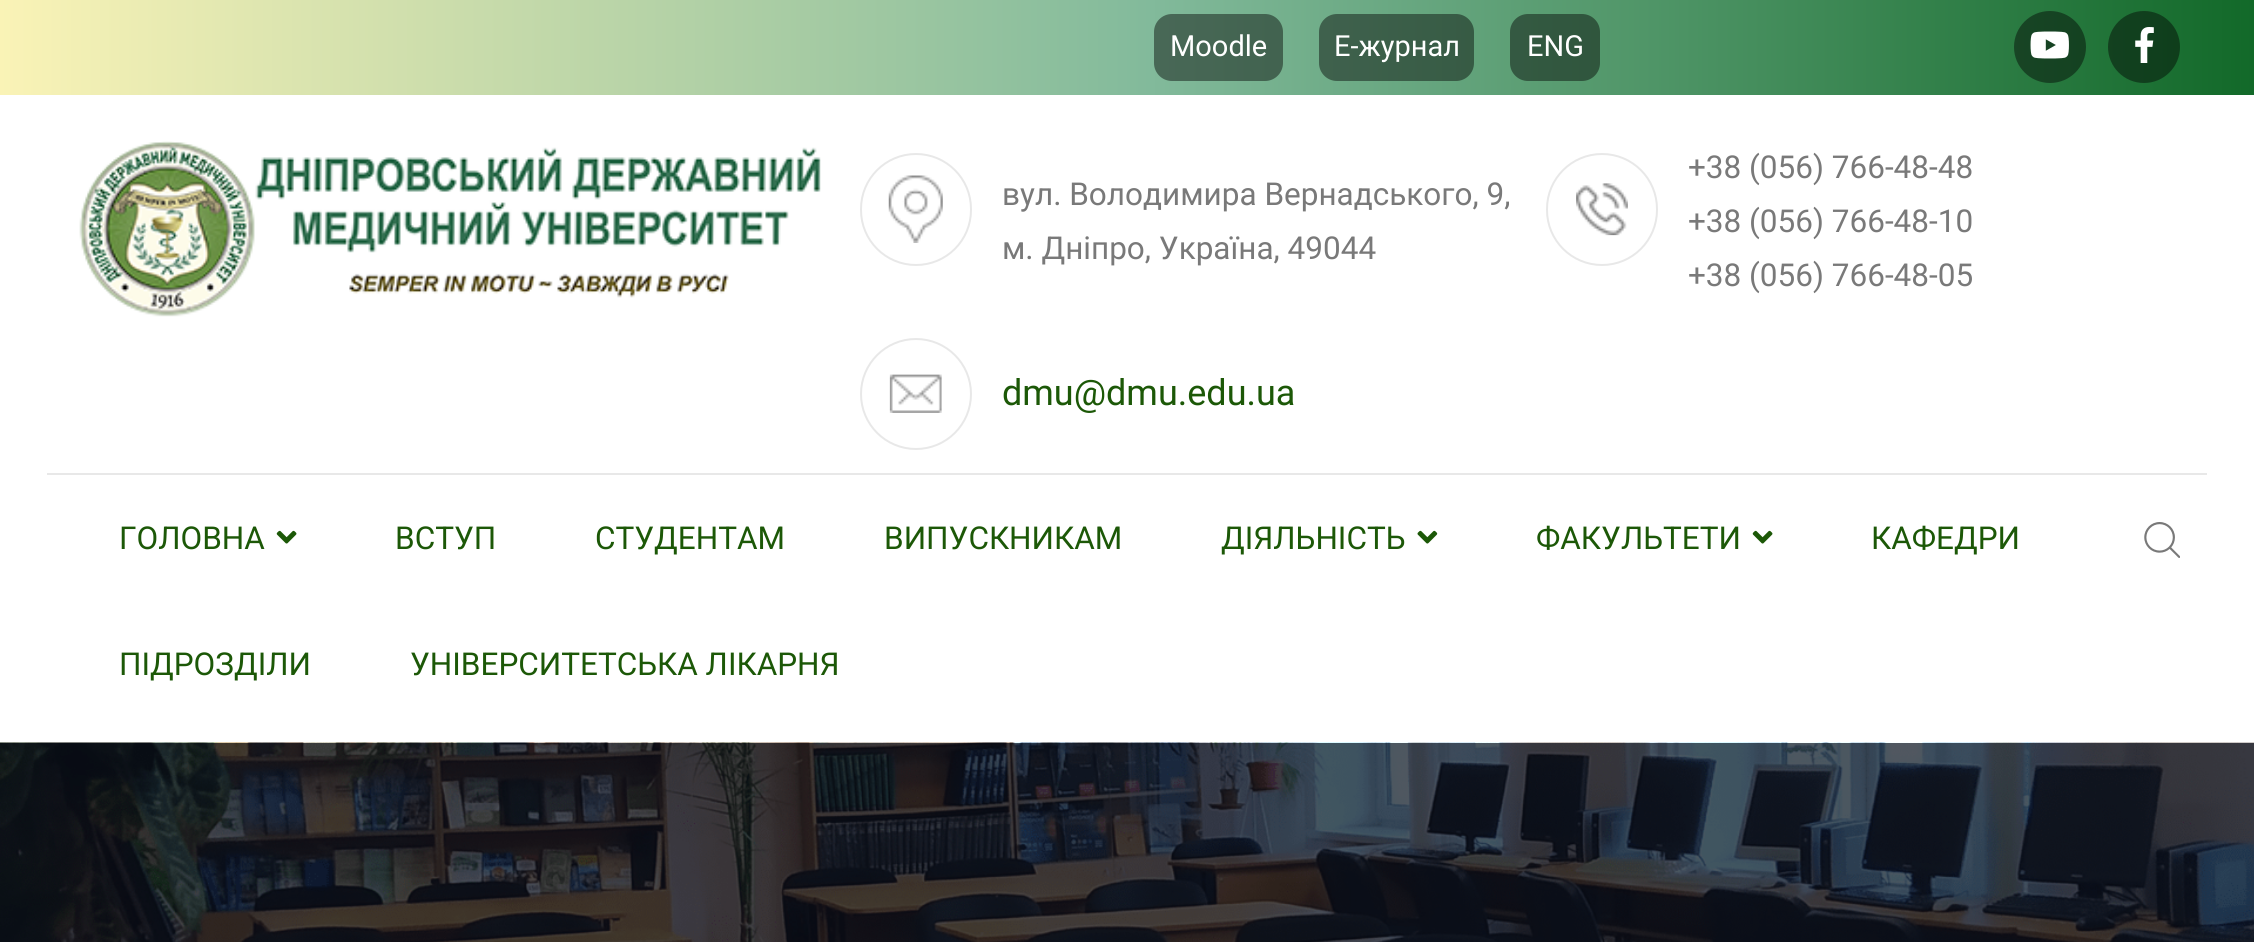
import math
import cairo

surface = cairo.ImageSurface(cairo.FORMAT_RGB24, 2254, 942)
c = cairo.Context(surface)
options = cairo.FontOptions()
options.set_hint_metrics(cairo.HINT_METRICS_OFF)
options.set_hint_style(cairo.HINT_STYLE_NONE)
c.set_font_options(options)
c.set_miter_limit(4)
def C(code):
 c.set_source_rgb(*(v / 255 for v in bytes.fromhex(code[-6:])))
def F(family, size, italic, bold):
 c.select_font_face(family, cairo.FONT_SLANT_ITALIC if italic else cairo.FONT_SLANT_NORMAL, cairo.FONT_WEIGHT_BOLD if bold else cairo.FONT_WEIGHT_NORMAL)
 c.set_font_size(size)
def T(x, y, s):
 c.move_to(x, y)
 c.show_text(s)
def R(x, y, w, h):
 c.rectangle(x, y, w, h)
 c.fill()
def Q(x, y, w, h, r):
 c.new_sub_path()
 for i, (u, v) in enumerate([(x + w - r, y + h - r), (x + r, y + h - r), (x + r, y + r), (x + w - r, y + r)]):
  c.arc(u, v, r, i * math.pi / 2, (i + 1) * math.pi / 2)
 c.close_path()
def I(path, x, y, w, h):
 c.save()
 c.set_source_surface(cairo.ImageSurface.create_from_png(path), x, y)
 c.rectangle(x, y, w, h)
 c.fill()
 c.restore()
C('ffffff')
c.paint()
gradient = cairo.LinearGradient(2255,47,0,47)
gradient.add_color_stop_rgba(0,0.071,0.412,0.161,1)
gradient.add_color_stop_rgba(.49,0.51,0.729,0.608,1)
gradient.add_color_stop_rgba(1,0.98,0.953,0.714,1)
c.set_source(gradient)
R(0,0,2254,95)
c.set_source_rgba(0,0,0,0.44)
Q(1154,14,129,67,18)
c.fill()
F('Roboto',29,0,0)
C('ffffff')
T(1170,56,'Moodle')
c.set_source_rgba(0,0,0,0.44)
Q(1319,14,155,67,18)
c.fill()
C('ffffff')
T(1334,56,'Е-журнал')
c.set_source_rgba(0,0,0,0.44)
Q(1510,14,90,67,18)
c.fill()
C('ffffff')
T(1527,56,'ENG')
c.set_source_rgba(0,0,0,0.44)
c.new_path()
c.arc(2050,47,36,0,2 * math.pi)
c.fill()
I('1.png',2030,31,39,28)
c.arc(2144,47,36,0,2 * math.pi)
c.fill()
I('2.png',2135,27,19,36)
C('e8e8e8')
R(47,473,2160,2)
I('3.png',79,141,742,176)
Q(861,154,110,111,55)
c.stroke()
I('4.png',888,175,55,68)
F('Roboto',31.5,0,0)
C('797979')
T(1002,205,'вул. Володимира Вернадського, 9,')
T(1002,259,'м. Дніпро, Україна, 49044')
Q(1547,154,110,111,55)
C('e8e8e8')
c.stroke()
I('5.png',1576,183,52,53)
C('797979')
T(1688,178,'+38 (056) 766-48-48')
T(1688,232,'+38 (056) 766-48-10')
T(1688,286,'+38 (056) 766-48-05')
c.new_path()
c.arc(916,394,55,0,2 * math.pi)
C('e8e8e8')
c.stroke()
I('6.png',889,374,53,39)
F('Roboto',36,0,0)
C('1c5807')
T(1002,405,'dmu@dmu.edu.ua')
F('Roboto',31.5,0,0)
T(119,549,'ГОЛОВНА')
I('7.png',276,530,21,14)
T(395,549,'ВСТУП')
T(595,549,'СТУДЕНТАМ')
T(884,549,'ВИПУСКНИКАМ')
T(1221,549,'ДІЯЛЬНІСТЬ')
I('8.png',1417,530,21,14)
T(1536,549,'ФАКУЛЬТЕТИ')
I('7.png',1752,530,21,14)
T(1871,549,'КАФЕДРИ')
T(119,675,'ПІДРОЗДІЛИ')
T(410,675,'УНІВЕРСИТЕТСЬКА ЛІКАРНЯ')
I('9.png',2144,522,36,36)
I('10.png',0,742,2254,200)
surface.write_to_png('o.png')
